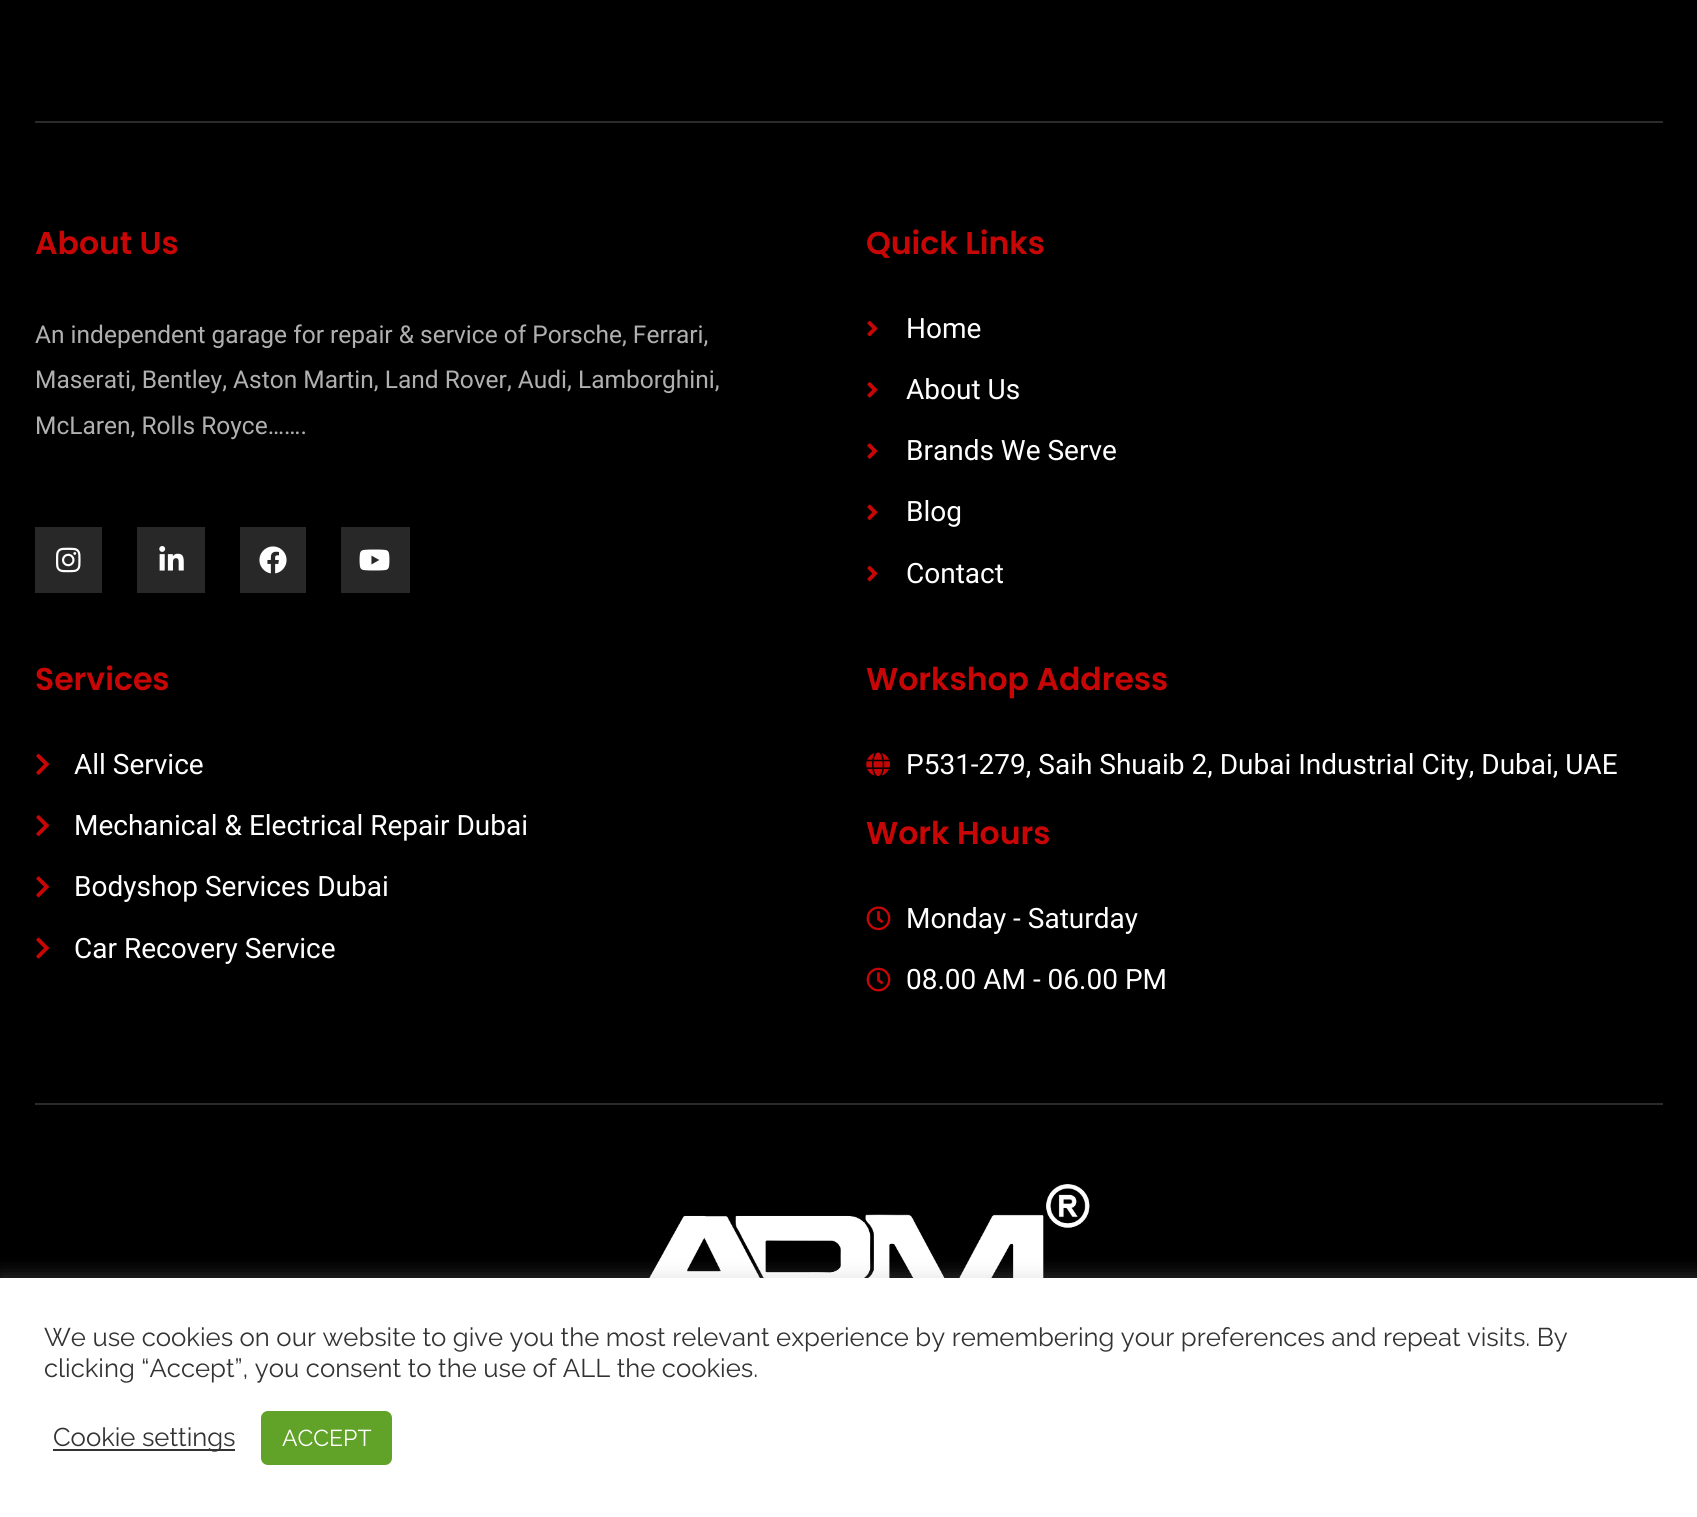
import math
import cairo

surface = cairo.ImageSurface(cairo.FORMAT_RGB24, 1697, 1517)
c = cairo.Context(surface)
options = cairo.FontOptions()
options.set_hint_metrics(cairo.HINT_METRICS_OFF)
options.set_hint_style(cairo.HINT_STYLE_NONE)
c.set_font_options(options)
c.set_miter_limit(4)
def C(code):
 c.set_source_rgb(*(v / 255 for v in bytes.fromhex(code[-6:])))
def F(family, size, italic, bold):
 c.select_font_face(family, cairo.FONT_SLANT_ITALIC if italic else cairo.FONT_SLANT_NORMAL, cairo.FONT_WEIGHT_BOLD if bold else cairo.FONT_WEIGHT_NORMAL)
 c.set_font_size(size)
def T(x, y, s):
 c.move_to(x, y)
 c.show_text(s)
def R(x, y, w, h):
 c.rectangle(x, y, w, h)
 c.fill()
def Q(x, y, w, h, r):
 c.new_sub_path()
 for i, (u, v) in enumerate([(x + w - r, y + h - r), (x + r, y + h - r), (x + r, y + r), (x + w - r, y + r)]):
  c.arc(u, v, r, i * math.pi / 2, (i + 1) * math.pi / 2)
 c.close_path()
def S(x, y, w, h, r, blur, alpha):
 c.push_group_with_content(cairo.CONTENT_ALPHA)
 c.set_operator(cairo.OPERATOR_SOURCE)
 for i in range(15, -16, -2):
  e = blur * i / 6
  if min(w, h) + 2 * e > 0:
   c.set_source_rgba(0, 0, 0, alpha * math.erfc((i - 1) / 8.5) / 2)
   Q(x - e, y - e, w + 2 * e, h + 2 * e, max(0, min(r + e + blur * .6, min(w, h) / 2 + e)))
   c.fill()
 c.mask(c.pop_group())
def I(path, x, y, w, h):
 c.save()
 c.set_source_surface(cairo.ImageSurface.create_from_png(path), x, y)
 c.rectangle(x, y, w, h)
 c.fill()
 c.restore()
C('000000')
c.paint()
C('2b2b2b')
R(35,121,1628,2)
F('Poppins SemiBold',31.5,0,0)
C('c80606')
T(35,254,'About Us')
F('Roboto',24.5,0,0)
C('b0b0b0')
T(35,343,'An independent garage for repair & service of Porsche, Ferrari,')
T(35,388,'Maserati, Bentley, Aston Martin, Land Rover, Audi, Lamborghini,')
T(35,434,'McLaren, Rolls Royce…….')
C('282828')
R(35,527,67,66)
I('1.png',56,547,25,26)
R(137,527,68,66)
I('2.png',159,546,25,25)
R(240,527,66,66)
I('3.png',259,546,28,28)
R(341,527,69,66)
I('4.png',359,549,31,22)
F('Poppins SemiBold',31.5,0,0)
C('c80606')
T(866,254,'Quick Links')
I('5.png',867,320,11,17)
F('Roboto',28,0,0)
C('ffffff')
T(906,338,'Home')
I('6.png',867,382,11,16)
T(906,399,'About Us')
I('7.png',867,443,11,16)
T(906,460,'Brands We Serve')
I('8.png',867,504,11,16)
T(906,521,'Blog')
I('5.png',867,565,11,17)
T(906,583,'Contact')
F('Poppins SemiBold',31.5,0,0)
C('c80606')
T(35,690,'Services')
I('9.png',36,753,13,22)
F('Roboto',28,0,0)
C('ffffff')
T(74,774,'All Service')
I('10.png',36,815,13,21)
T(74,835,'Mechanical & Electrical Repair Dubai')
I('11.png',36,876,13,22)
T(74,896,'Bodyshop Services Dubai')
I('12.png',36,937,13,22)
T(74,958,'Car Recovery Service')
F('Poppins SemiBold',31.5,0,0)
C('c80606')
T(866,690,'Workshop Address')
I('13.png',866,752,24,25)
F('Roboto',28,0,0)
C('ffffff')
T(906,774,'P531-279, Saih Shuaib 2, Dubai Industrial City, Dubai, UAE')
F('Poppins SemiBold',31.5,0,0)
C('c80606')
T(866,844,'Work Hours')
I('14.png',866,906,25,25)
F('Roboto',28,0,0)
C('ffffff')
T(906,928,'Monday - Saturday')
I('15.png',866,967,25,25)
T(906,989,'08.00 AM - 06.00 PM')
C('2b2b2b')
R(35,1103,1628,2)
I('16.png',649,1184,441,94)
C('acabab')
S(0,1276,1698,240,0,9,.3)
C('ffffff')
R(0,1278,1697,239)
F('Raleway',25.67,0,0)
C('333333')
T(44,1346,'We use cookies on our website to give you the most relevant experience by remembering your preferences and repeat visits. By')
T(44,1377,'clicking “Accept”, you consent to the use of ALL the cookies.')
R(53,1449,182,2)
T(53,1446,'Cookie settings')
C('61a229')
Q(261,1411,131,54,7)
c.fill()
F('Raleway',23,0,0)
C('ffffff')
T(282,1446,'ACCEPT')
surface.write_to_png('o.png')
